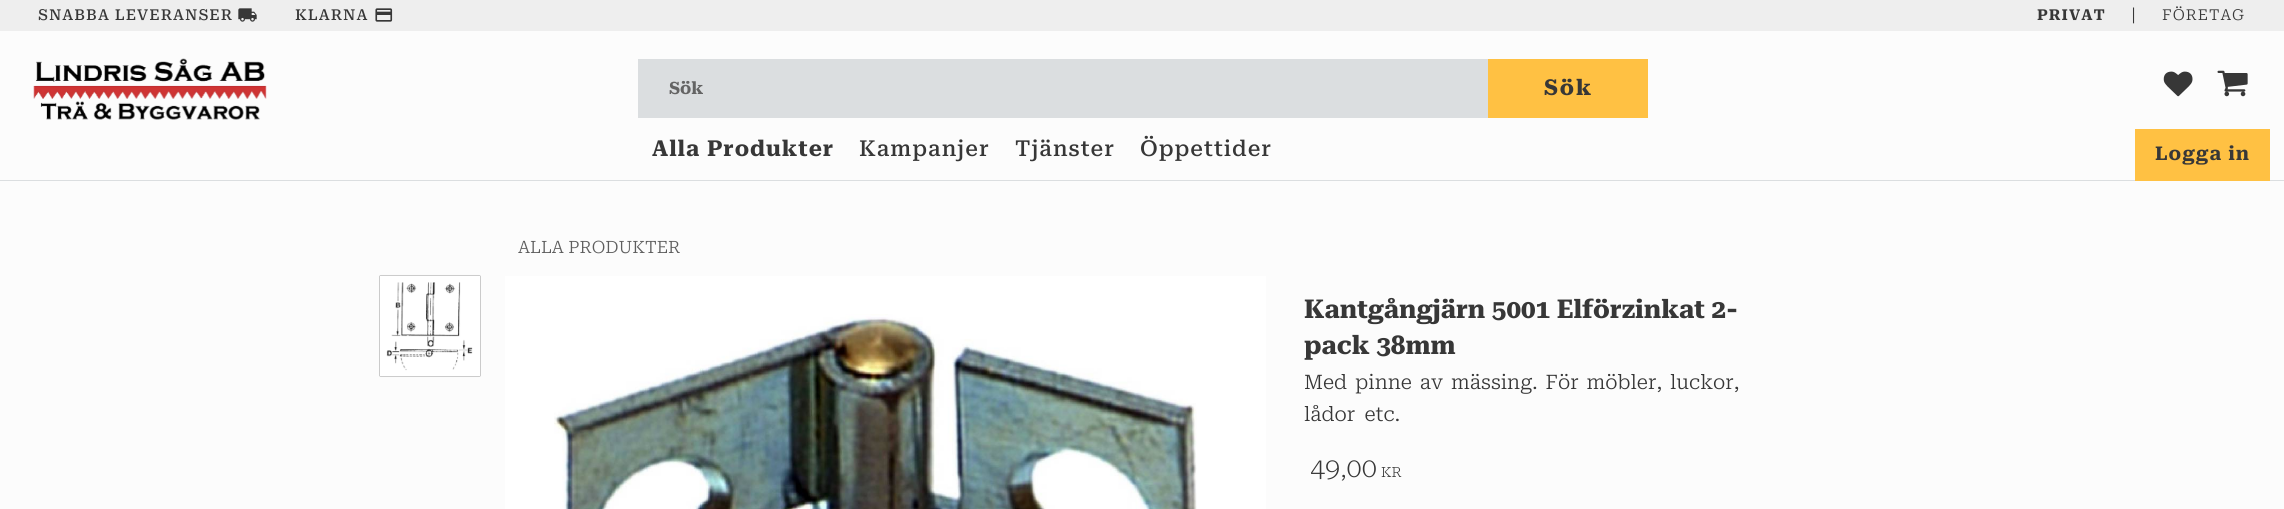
import math
import cairo

surface = cairo.ImageSurface(cairo.FORMAT_RGB24, 2284, 509)
c = cairo.Context(surface)
options = cairo.FontOptions()
options.set_hint_metrics(cairo.HINT_METRICS_OFF)
options.set_hint_style(cairo.HINT_STYLE_NONE)
c.set_font_options(options)
c.set_miter_limit(4)
def C(code):
 c.set_source_rgb(*(v / 255 for v in bytes.fromhex(code[-6:])))
def F(family, size, italic, bold):
 c.select_font_face(family, cairo.FONT_SLANT_ITALIC if italic else cairo.FONT_SLANT_NORMAL, cairo.FONT_WEIGHT_BOLD if bold else cairo.FONT_WEIGHT_NORMAL)
 c.set_font_size(size)
def T(x, y, s):
 c.move_to(x, y)
 c.show_text(s)
def L(x, y, s, letter, word):
 c.move_to(x, y)
 for ch in s:
  c.show_text(ch)
  c.rel_move_to(letter + word * (ch == ' '), 0)
def R(x, y, w, h):
 c.rectangle(x, y, w, h)
 c.fill()
def Q(x, y, w, h, r):
 c.new_sub_path()
 for i, (u, v) in enumerate([(x + w - r, y + h - r), (x + r, y + h - r), (x + r, y + r), (x + w - r, y + r)]):
  c.arc(u, v, r, i * math.pi / 2, (i + 1) * math.pi / 2)
 c.close_path()
def S(x, y, w, h, r, blur, alpha):
 c.push_group_with_content(cairo.CONTENT_ALPHA)
 c.set_operator(cairo.OPERATOR_SOURCE)
 for i in range(15, -16, -2):
  e = blur * i / 6
  if min(w, h) + 2 * e > 0:
   c.set_source_rgba(0, 0, 0, alpha * math.erfc((i - 1) / 8.5) / 2)
   Q(x - e, y - e, w + 2 * e, h + 2 * e, max(0, min(r + e + blur * .6, min(w, h) / 2 + e)))
   c.fill()
 c.mask(c.pop_group())
def I(path, x, y, w, h):
 c.save()
 c.set_source_surface(cairo.ImageSurface.create_from_png(path), x, y)
 c.rectangle(x, y, w, h)
 c.fill()
 c.restore()
C('fcfcfc')
c.paint()
C('dbdee0')
R(0,180,2284,1)
C('eeeeee')
R(0,0,2284,31)
F('Roboto Serif Medium',15,0,0)
C('373737')
L(38,20,'SNABBA LEVERANSER',1,0)
I('1.png',238,8,19,14)
L(295,20,'KLARNA',1,0)
I('2.png',375,8,18,14)
F('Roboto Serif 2',15,0,1)
L(2037,20,'PRIVAT',1,0)
F('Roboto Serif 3 Light',18,0,0)
L(2131,21,'|',1,0)
F('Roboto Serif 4 Light',15,0,0)
L(2162,20,'FÖRETAG',1,0)
C('ffc143')
R(2135,129,135,52)
F('Roboto Serif 3',19,0,1)
C('373737')
L(2155,160,'Logga in',1,0)
I('3.png',33,58,234,62)
C('dbdee0')
R(638,59,850,59)
F('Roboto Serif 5',17,0,1)
C('646464')
T(669,94,'Sök')
C('ffc143')
R(1488,59,160,59)
F('Roboto Serif',22,0,1)
C('373737')
L(1544,95,'Sök',2,0)
I('4.png',2163,71,30,26)
I('5.png',2217,70,31,27)
F('Roboto Serif 4',22,0,1)
L(652,156,'Alla Produkter',1,0)
F('Roboto Serif 2 Medium',22,0,0)
L(859,156,'Kampanjer',1,0)
L(1015,156,'Tjänster',1,0)
L(1140,156,'Öppettider',1,0)
F('Roboto Serif 2 Light',17,0,0)
C('5e5e5e')
T(518,253,'ALLA PRODUKTER')
F('Roboto Serif',26,0,1)
C('373737')
T(1304,318,'Kantgångjärn 5001 Elförzinkat 2-')
T(1304,354,'pack 38mm')
F('Roboto Serif Light',20,0,0)
L(1304,389,'Med pinne av mässing. För möbler, luckor,',0,2.75)
L(1304,421,'lådor etc.',0,4)
C('373737')
S(380,276,100,100,0,.5,1)
C('ffffff')
R(380,276,100,100)
I('6.png',386,282,87,89)
R(505,276,761,233)
I('7.png',554,314,643,195)
F('Roboto Serif ExtraLight',27,0,0)
C('373737')
T(1310,477,'49,00')
F('Roboto Serif 2 ExtraLight',14,0,0)
T(1381,477,'KR')
surface.write_to_png('o.png')
